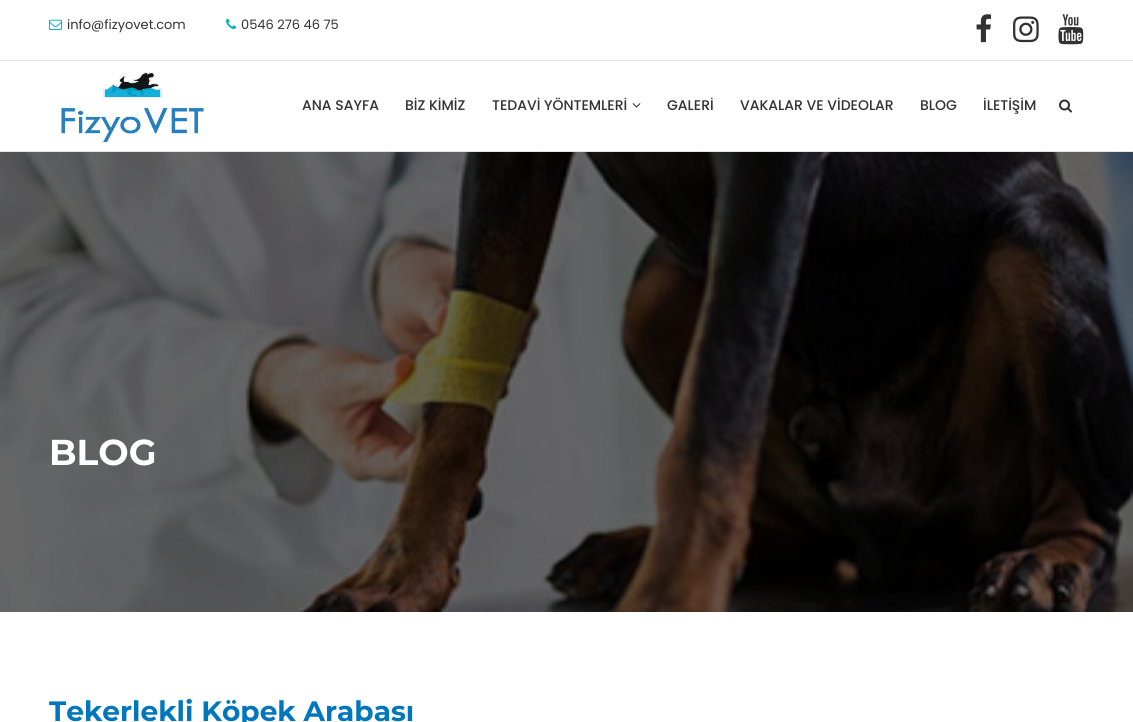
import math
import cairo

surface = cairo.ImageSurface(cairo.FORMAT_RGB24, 1133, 722)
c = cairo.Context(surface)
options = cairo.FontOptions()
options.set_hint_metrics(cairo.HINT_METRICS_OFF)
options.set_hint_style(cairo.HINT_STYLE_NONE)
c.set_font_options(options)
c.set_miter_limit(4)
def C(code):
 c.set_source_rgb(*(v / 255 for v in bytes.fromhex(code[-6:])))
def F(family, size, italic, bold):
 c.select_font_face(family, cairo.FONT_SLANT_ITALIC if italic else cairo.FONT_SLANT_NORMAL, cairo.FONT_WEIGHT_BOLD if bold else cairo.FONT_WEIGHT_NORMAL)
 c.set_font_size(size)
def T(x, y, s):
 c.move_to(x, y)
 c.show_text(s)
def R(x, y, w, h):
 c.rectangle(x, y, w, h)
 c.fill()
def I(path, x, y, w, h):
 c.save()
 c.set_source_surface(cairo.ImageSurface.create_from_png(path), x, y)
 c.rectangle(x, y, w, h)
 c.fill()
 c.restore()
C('ffffff')
c.paint()
C('e6e6e6')
R(0,151,1133,1)
R(0,60,1133,1)
I('1.png',49,19,13,11)
F('Poppins',13,0,0)
C('323232')
T(67,29,'info@fizyovet.com')
I('2.png',226,18,11,11)
T(241,29,'0546 276 46 75')
I('3.png',976,14,16,29)
I('4.png',1013,16,26,27)
I('5.png',1058,14,26,31)
I('6.png',61,72,143,71)
F('Poppins Medium',14,0,0)
T(302,110,'ANA SAYFA')
T(405,110,'BİZ KİMİZ')
T(492,110,'TEDAVİ YÖNTEMLERİ')
I('7.png',632,103,9,5)
T(667,110,'GALERİ')
T(740,110,'VAKALAR VE VİDEOLAR')
T(920,110,'BLOG')
T(983,110,'İLETİŞİM')
I('8.png',1059,99,13,14)
I('9.png',0,152,1133,460)
F('Montserrat',36,0,1)
C('ffffff')
T(49,465,'BLOG')
F('Montserrat',28,0,1)
C('0076bd')
T(49,721,'Tekerlekli Köpek Arabası')
surface.write_to_png('o.png')
